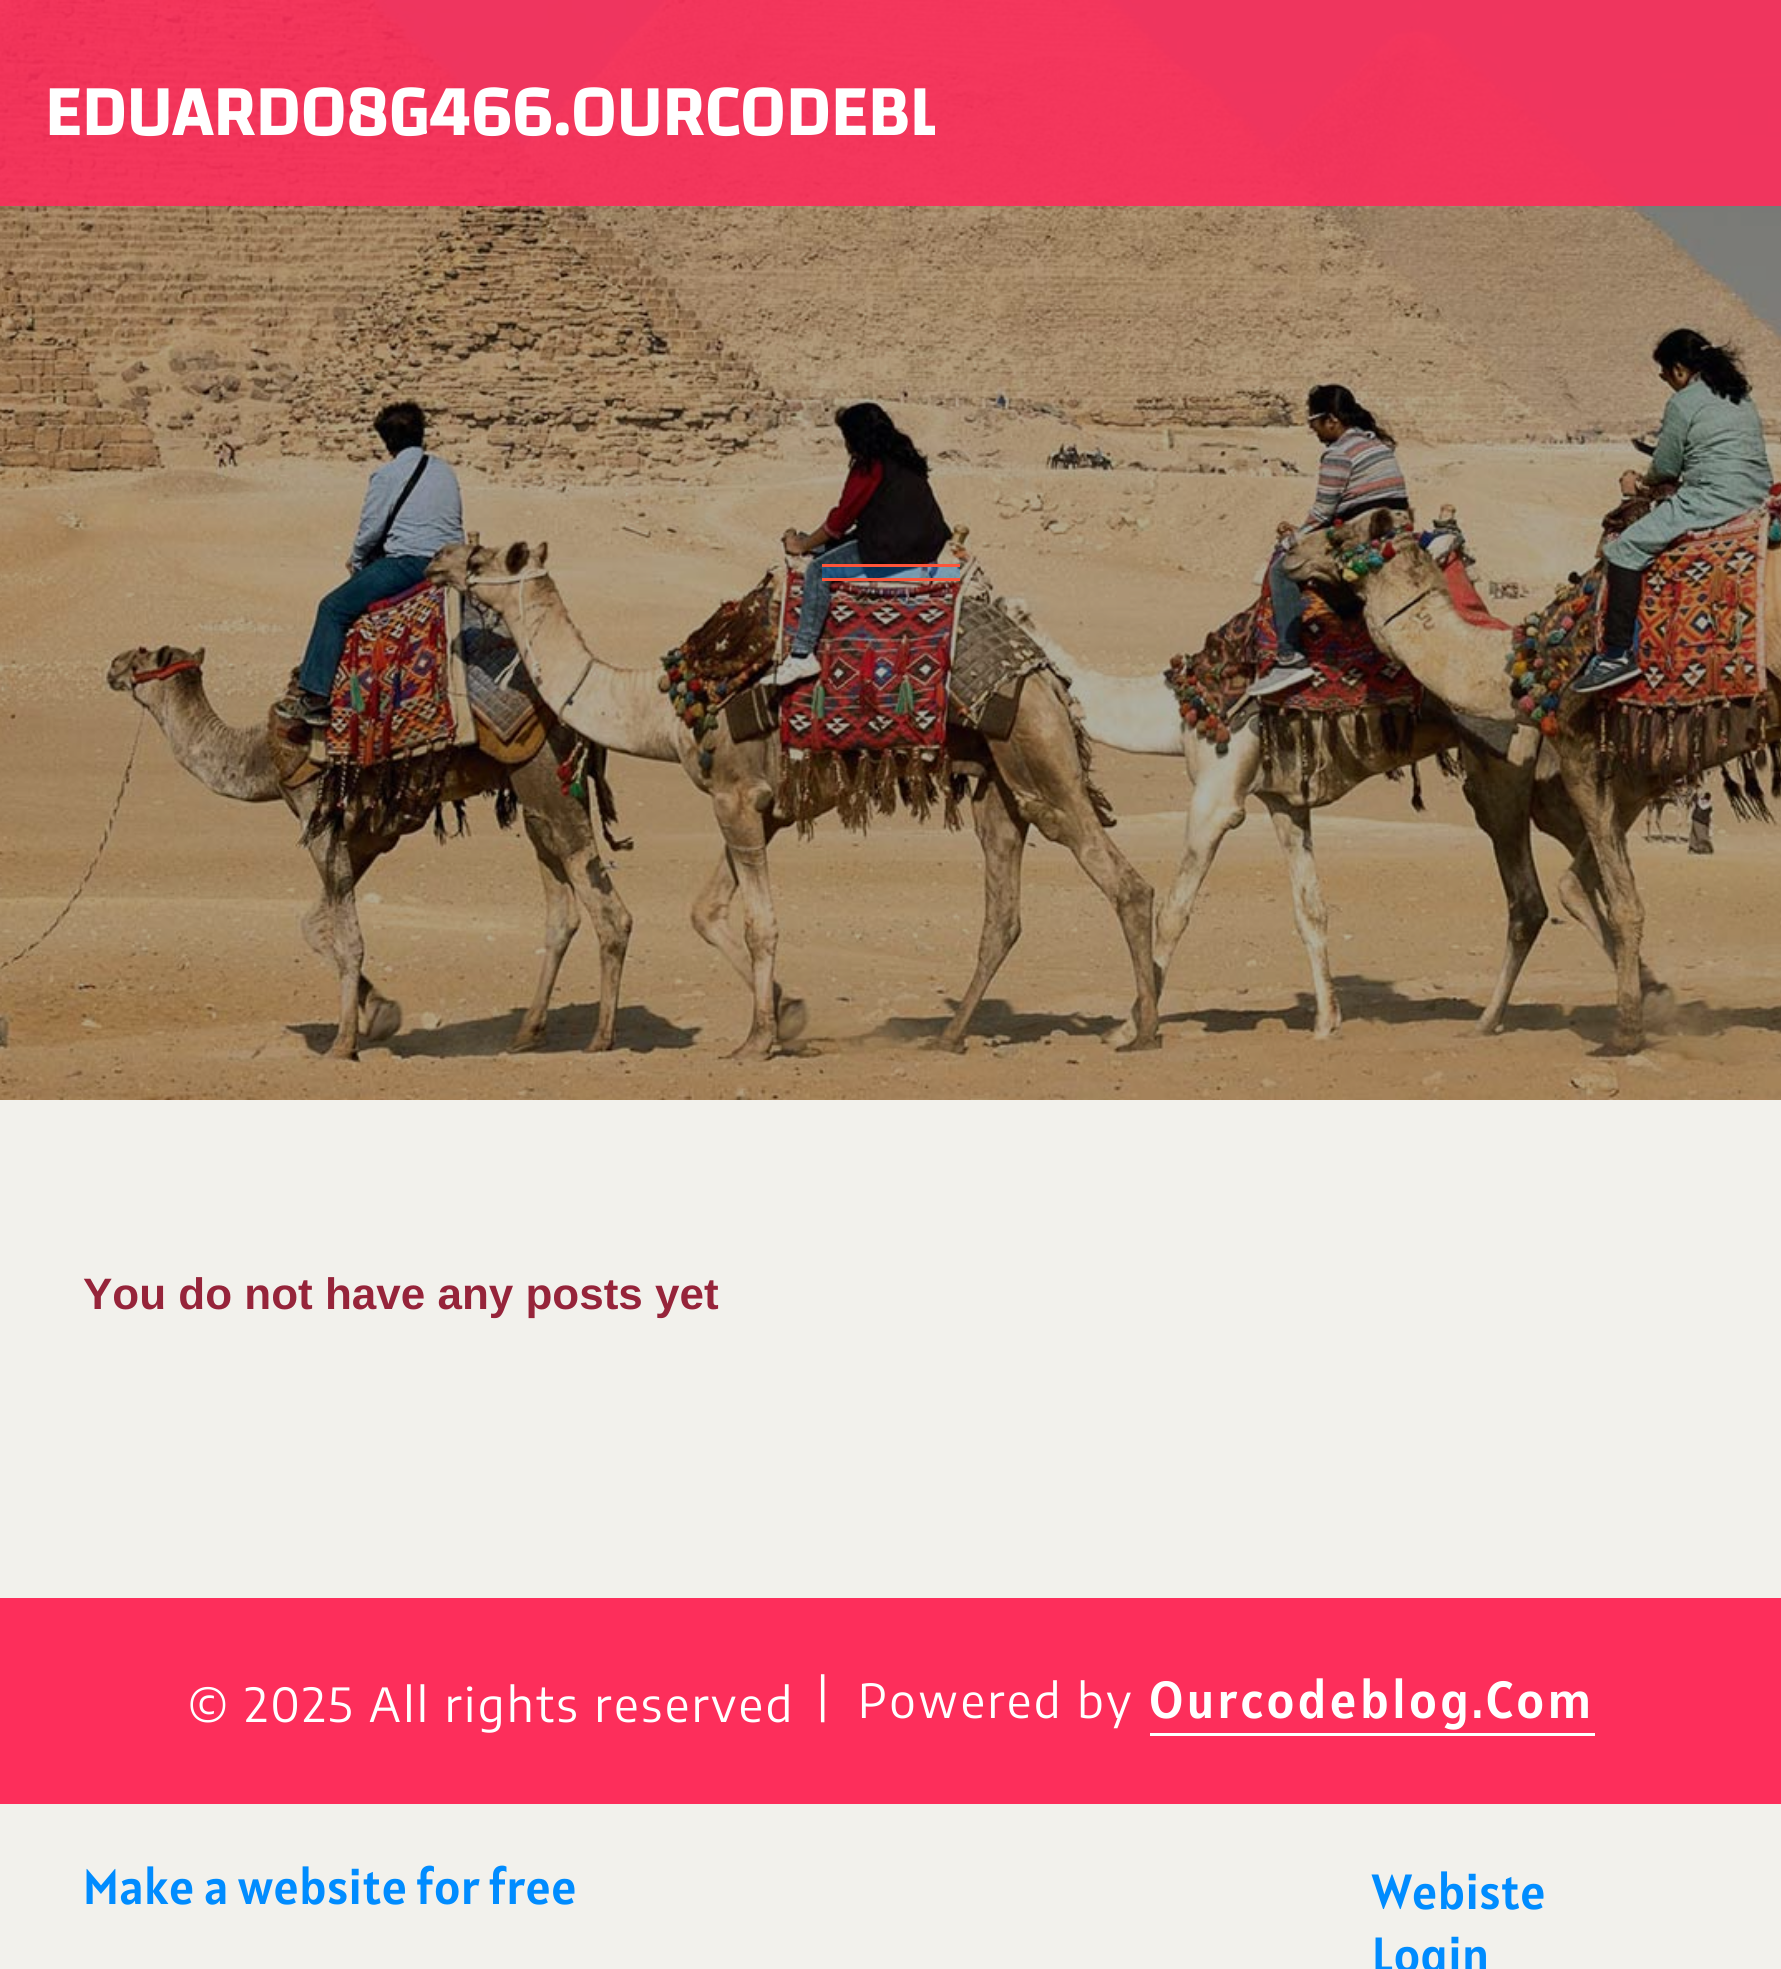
import math
import cairo

surface = cairo.ImageSurface(cairo.FORMAT_RGB24, 1781, 1969)
c = cairo.Context(surface)
options = cairo.FontOptions()
options.set_hint_metrics(cairo.HINT_METRICS_OFF)
options.set_hint_style(cairo.HINT_STYLE_NONE)
c.set_font_options(options)
c.set_miter_limit(4)
def C(code):
 c.set_source_rgb(*(v / 255 for v in bytes.fromhex(code[-6:])))
def F(family, size, italic, bold):
 c.select_font_face(family, cairo.FONT_SLANT_ITALIC if italic else cairo.FONT_SLANT_NORMAL, cairo.FONT_WEIGHT_BOLD if bold else cairo.FONT_WEIGHT_NORMAL)
 c.set_font_size(size)
def T(x, y, s):
 c.move_to(x, y)
 c.show_text(s)
def L(x, y, s, letter, word):
 c.move_to(x, y)
 for ch in s:
  c.show_text(ch)
  c.rel_move_to(letter + word * (ch == ' '), 0)
def R(x, y, w, h):
 c.rectangle(x, y, w, h)
 c.fill()
def I(path, x, y, w, h):
 c.save()
 c.set_source_surface(cairo.ImageSurface.create_from_png(path), x, y)
 c.rectangle(x, y, w, h)
 c.fill()
 c.restore()
C('f2f1ec')
c.paint()
I('1.png',0,0,1781,1100)
c.set_source_rgba(0.992,0.18,0.357,0.9)
R(0,0,1781,206)
c.save()
c.rectangle(33,19,902,165)
c.clip()
F('Changa',71.5,0,1)
C('ffffff')
T(44,135,'EDUARDO8G466.OURCODEBL')
c.restore()
c.set_source_rgba(0,0.549,1,0.3)
R(822,567,138,11)
C('fd553a')
R(822,564,138,3)
R(822,578,138,3)
F('Liberation Sans',44,0,1)
C('96243a')
T(83,1309,'You do not have any posts yet')
C('fd2e5b')
R(0,1598,1781,206)
F('Encode Sans Condensed Thin',46.75,0,0)
C('ffffff')
L(188,1722,'© 2025 All rights reserved',2.75,0)
L(817,1712,'|',2.75,0)
L(858,1718,'Powered by',2.75,0)
F('Alatsi',52.25,0,0)
L(1149,1718,'Ourcodeblog.Com',2.75,0)
R(1150,1733,445,3)
F('Alatsi',49.5,0,0)
C('008cff')
T(83,1904,'Make a website for free')
T(1372,1909,'Webiste')
T(1372,1972,'Login')
surface.write_to_png('o.png')
